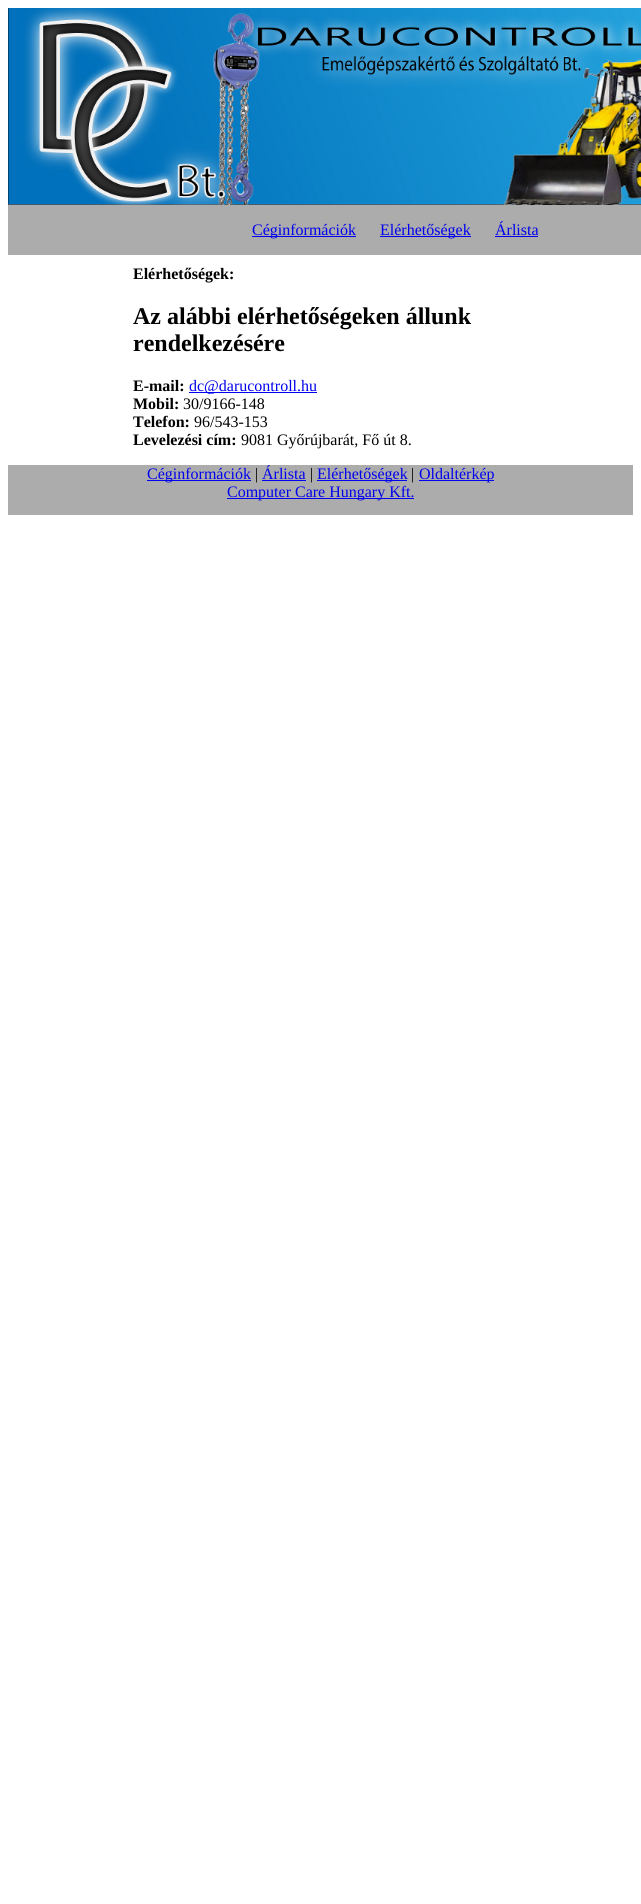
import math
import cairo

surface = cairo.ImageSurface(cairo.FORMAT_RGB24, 641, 1904)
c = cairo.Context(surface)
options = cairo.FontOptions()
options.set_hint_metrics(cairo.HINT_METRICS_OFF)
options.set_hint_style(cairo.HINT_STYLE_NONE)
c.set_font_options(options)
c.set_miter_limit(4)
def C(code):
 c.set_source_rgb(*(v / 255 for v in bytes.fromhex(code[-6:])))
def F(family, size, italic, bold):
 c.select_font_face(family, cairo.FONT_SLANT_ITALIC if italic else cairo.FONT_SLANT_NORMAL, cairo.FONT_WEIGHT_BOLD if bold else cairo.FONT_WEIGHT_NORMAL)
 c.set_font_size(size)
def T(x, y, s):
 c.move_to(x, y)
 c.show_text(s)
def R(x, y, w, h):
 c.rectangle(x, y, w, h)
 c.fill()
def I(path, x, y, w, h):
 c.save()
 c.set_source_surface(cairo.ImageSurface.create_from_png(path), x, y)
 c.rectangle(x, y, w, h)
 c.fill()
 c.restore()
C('ffffff')
c.paint()
I('1.png',8,8,633,197)
C('acacac')
R(8,205,633,50)
C('0000ee')
R(252,236,104,1)
F('Liberation Serif',16,0,0)
T(252,235,'Céginformációk')
R(380,236,91,1)
T(380,235,'Elérhetőségek')
T(495,235,'Árlista')
R(495,236,43,1)
F('Liberation Serif',16,0,1)
C('000000')
T(133,279,'Elérhetőségek:')
F('Liberation Serif',24,0,1)
T(133,324,'Az alábbi elérhetőségeken állunk')
T(133,351,'rendelkezésére')
F('Liberation Serif',16,0,1)
T(133,391,'E-mail:')
C('0000ee')
R(189,392,128,1)
F('Liberation Serif',16,0,0)
T(189,391,'dc@darucontroll.hu')
F('Liberation Serif',16,0,1)
C('000000')
T(133,409,'Mobil:')
F('Liberation Serif',16,0,0)
T(183,409,'30/9166-148')
F('Liberation Serif',16,0,1)
T(133,427,'Telefon:')
F('Liberation Serif',16,0,0)
T(194,427,'96/543-153')
F('Liberation Serif',16,0,1)
T(133,445,'Levelezési cím:')
F('Liberation Serif',16,0,0)
T(241,445,'9081 Győrújbarát, Fő út 8.')
C('acacac')
R(8,465,625,50)
C('0000ee')
R(147,480,104,1)
T(147,479,'Céginformációk')
C('000000')
T(255,479,'|')
C('0000ee')
T(262,479,'Árlista')
R(262,480,44,1)
C('000000')
T(310,479,'|')
C('0000ee')
R(317,480,90,1)
T(317,479,'Elérhetőségek')
C('000000')
T(411,479,'|')
C('0000ee')
R(419,480,75,1)
T(419,479,'Oldaltérkép')
R(227,498,187,1)
T(227,497,'Computer Care Hungary Kft.')
surface.write_to_png('o.png')
